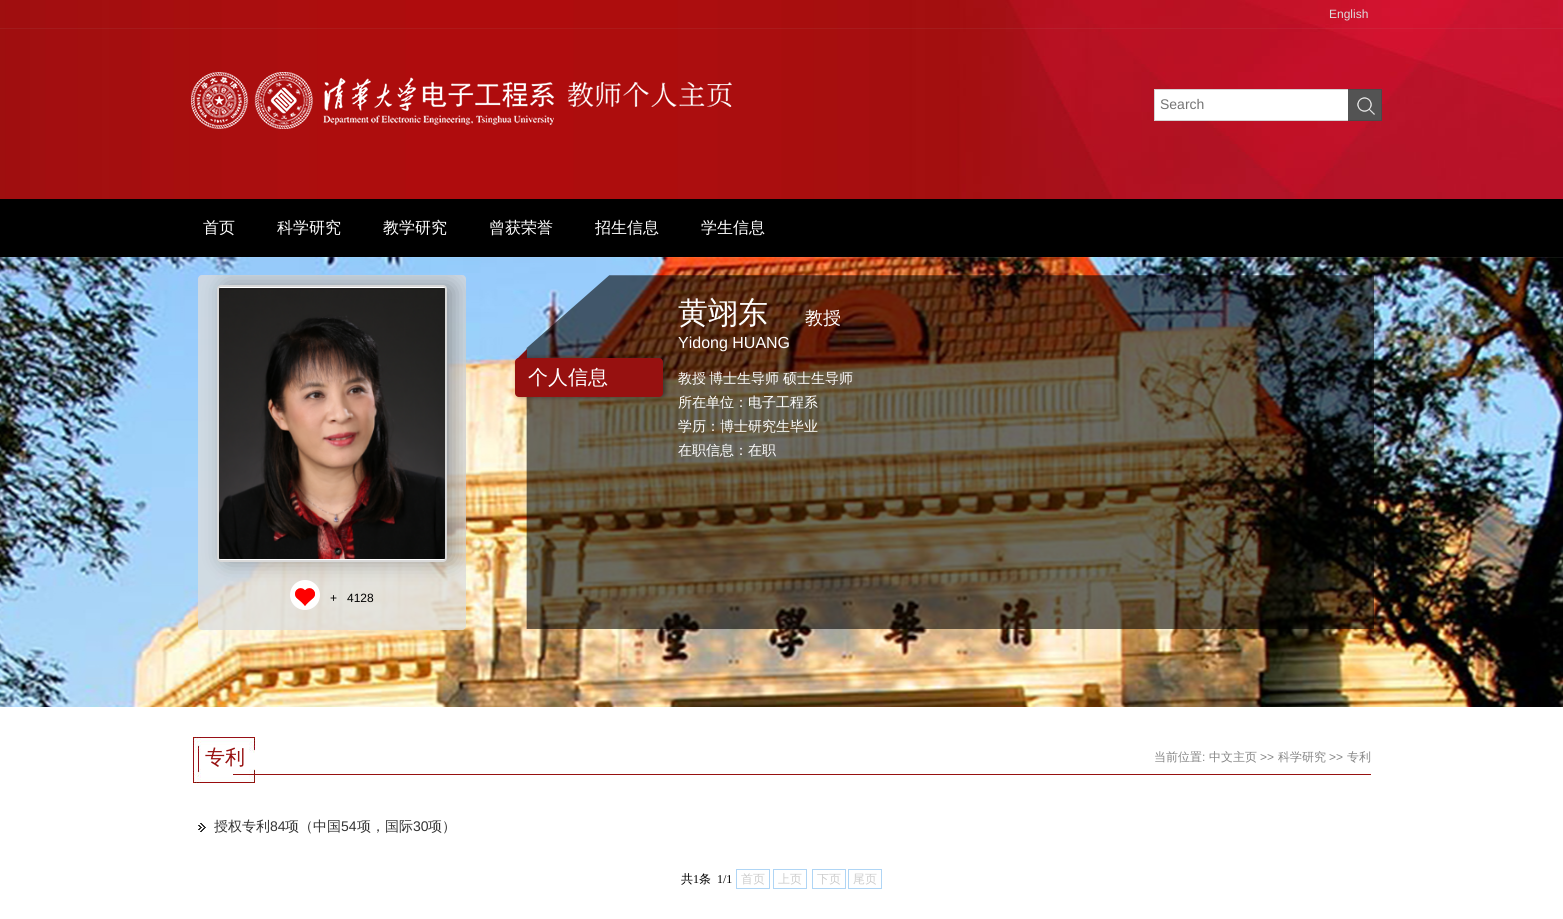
import math
import cairo

surface = cairo.ImageSurface(cairo.FORMAT_RGB24, 1563, 919)
c = cairo.Context(surface)
options = cairo.FontOptions()
options.set_hint_metrics(cairo.HINT_METRICS_OFF)
options.set_hint_style(cairo.HINT_STYLE_NONE)
c.set_font_options(options)
c.set_miter_limit(4)
def C(code):
 c.set_source_rgb(*(v / 255 for v in bytes.fromhex(code[-6:])))
def F(family, size, italic, bold):
 c.select_font_face(family, cairo.FONT_SLANT_ITALIC if italic else cairo.FONT_SLANT_NORMAL, cairo.FONT_WEIGHT_BOLD if bold else cairo.FONT_WEIGHT_NORMAL)
 c.set_font_size(size)
def T(x, y, s):
 c.move_to(x, y)
 c.show_text(s)
def R(x, y, w, h):
 c.rectangle(x, y, w, h)
 c.fill()
def Q(x, y, w, h, r):
 c.new_sub_path()
 for i, (u, v) in enumerate([(x + w - r, y + h - r), (x + r, y + h - r), (x + r, y + r), (x + w - r, y + r)]):
  c.arc(u, v, r, i * math.pi / 2, (i + 1) * math.pi / 2)
 c.close_path()
def S(x, y, w, h, r, blur, alpha):
 c.push_group_with_content(cairo.CONTENT_ALPHA)
 c.set_operator(cairo.OPERATOR_SOURCE)
 for i in range(15, -16, -2):
  e = blur * i / 6
  if min(w, h) + 2 * e > 0:
   c.set_source_rgba(0, 0, 0, alpha * math.erfc((i - 1) / 8.5) / 2)
   Q(x - e, y - e, w + 2 * e, h + 2 * e, max(0, min(r + e + blur * .6, min(w, h) / 2 + e)))
   c.fill()
 c.mask(c.pop_group())
def I(path, x, y, w, h):
 c.save()
 c.set_source_surface(cairo.ImageSurface.create_from_png(path), x, y)
 c.rectangle(x, y, w, h)
 c.fill()
 c.restore()
C('ffffff')
c.paint()
I('1.png',0,0,1563,199)
c.set_source_rgba(0.725,0.725,0.725,0.08)
R(0,28,1563,1)
F('Liberation Sans',12,0,0)
C('dedede')
T(1329,18,'English')
I('2.png',191,72,541,57)
C('ffffff')
c.rectangle(1154.5,89.5,227,31)
c.fill_preserve()
C('d4d4d4')
c.set_line_width(1)
c.stroke()
F('Liberation Sans',14,0,0)
C('757575')
T(1160,109,'Search')
c.set_source_rgba(0.157,0.157,0.157,0.8)
R(1348,89,34,32)
I('3.png',1357,97,18,18)
I('4.png',0,257,1563,450)
c.set_source_rgba(0.863,0.863,0.863,0.77)
Q(198,275,268,355,4)
c.fill()
c.save()
Q(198,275,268,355,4)
c.clip()
C('000000')
S(224,285,230,277,4,10.5,.3)
c.restore()
C('000000')
R(0,199,1563,58)
F('WenQuanYi Zen Hei Medium',16,0,0)
C('ffffff')
T(203,233,'首页')
T(277,233,'科学研究')
T(383,233,'教学研究')
T(489,233,'曾获荣誉')
T(595,233,'招生信息')
T(701,233,'学生信息')
I('5.png',526,275,848,354)
C('000000')
S(518,358,148,39,4,2.5,.4)
C('971110')
Q(515,358,148,39,4)
c.fill()
I('6.png',517,349,10,10)
F('WenQuanYi Zen Hei Medium',20,0,0)
C('ffffff')
T(528,384,'个人信息')
F('WenQuanYi Zen Hei Medium',30,0,0)
T(678,323,'黄翊东')
F('Liberation Sans',16,0,0)
T(678,348,'Yidong HUANG')
F('WenQuanYi Zen Hei Medium',18,0,0)
T(805,324,'教授')
F('WenQuanYi Zen Hei Medium',14,0,0)
T(678,383,'教授')
T(709,383,'博士生导师')
T(783,383,'硕士生导师')
T(678,407,'所在单位：电子工程系')
T(678,431,'学历：博士研究生毕业')
T(678,455,'在职信息：在职')
Q(218,286,228,275,3)
c.fill_preserve()
C('d9d9d9')
c.set_line_width(2)
c.stroke()
I('7.png',219,288,226,271)
I('8.png',290,580,30,30)
F('Liberation Sans',12,0,0)
C('000000')
T(330,602,'+')
T(347,602,'4128')
I('9.png',193,737,62,46)
F('WenQuanYi Zen Hei Medium',20,0,0)
C('971110')
T(205,764,'专利')
F('WenQuanYi Zen Hei Medium',12,0,0)
C('858585')
T(1154,761,'当前位置')
F('Liberation Sans',12,0,0)
T(1202,761,':')
F('WenQuanYi Zen Hei Medium',12,0,0)
T(1209,761,'中文主页')
F('Liberation Sans',12,0,0)
T(1260,761,'>>')
F('WenQuanYi Zen Hei Medium',12,0,0)
T(1278,761,'科学研究')
F('Liberation Sans',12,0,0)
T(1329,761,'>>')
F('WenQuanYi Zen Hei Medium',12,0,0)
T(1347,761,'专利')
C('971110')
R(233,774,1138,1)
I('10.png',198,823,8,9)
F('WenQuanYi Zen Hei Medium',14,0,0)
C('333333')
T(214,831,'授权专利')
F('Liberation Sans',14,0,0)
T(270,831,'84')
F('WenQuanYi Zen Hei Medium',14,0,0)
T(285,831,'项（中国')
F('Liberation Sans',14,0,0)
T(341,831,'54')
F('WenQuanYi Zen Hei Medium',14,0,0)
T(357,831,'项，国际')
F('Liberation Sans',14,0,0)
T(413,831,'30')
F('WenQuanYi Zen Hei Medium',14,0,0)
T(428,831,'项）')
F('WenQuanYi Zen Hei Medium',12,0,0)
C('000000')
T(681,883,'共')
F('Liberation Serif',12,0,0)
T(693,883,'1')
F('WenQuanYi Zen Hei Medium',12,0,0)
T(699,883,'条')
F('Liberation Serif',12,0,0)
T(717,883,'1/1')
c.rectangle(736.5,869.5,33,19)
C('afd5f5')
c.set_line_width(1)
c.stroke()
F('WenQuanYi Zen Hei Medium',12,0,0)
C('cccccc')
T(741,883,'首页')
c.rectangle(773.5,869.5,33,19)
C('afd5f5')
c.stroke()
C('cccccc')
T(778,883,'上页')
c.rectangle(812.5,869.5,33,19)
C('afd5f5')
c.stroke()
C('cccccc')
T(817,883,'下页')
c.rectangle(848.5,869.5,33,19)
C('afd5f5')
c.stroke()
C('cccccc')
T(853,883,'尾页')
surface.write_to_png('o.png')
